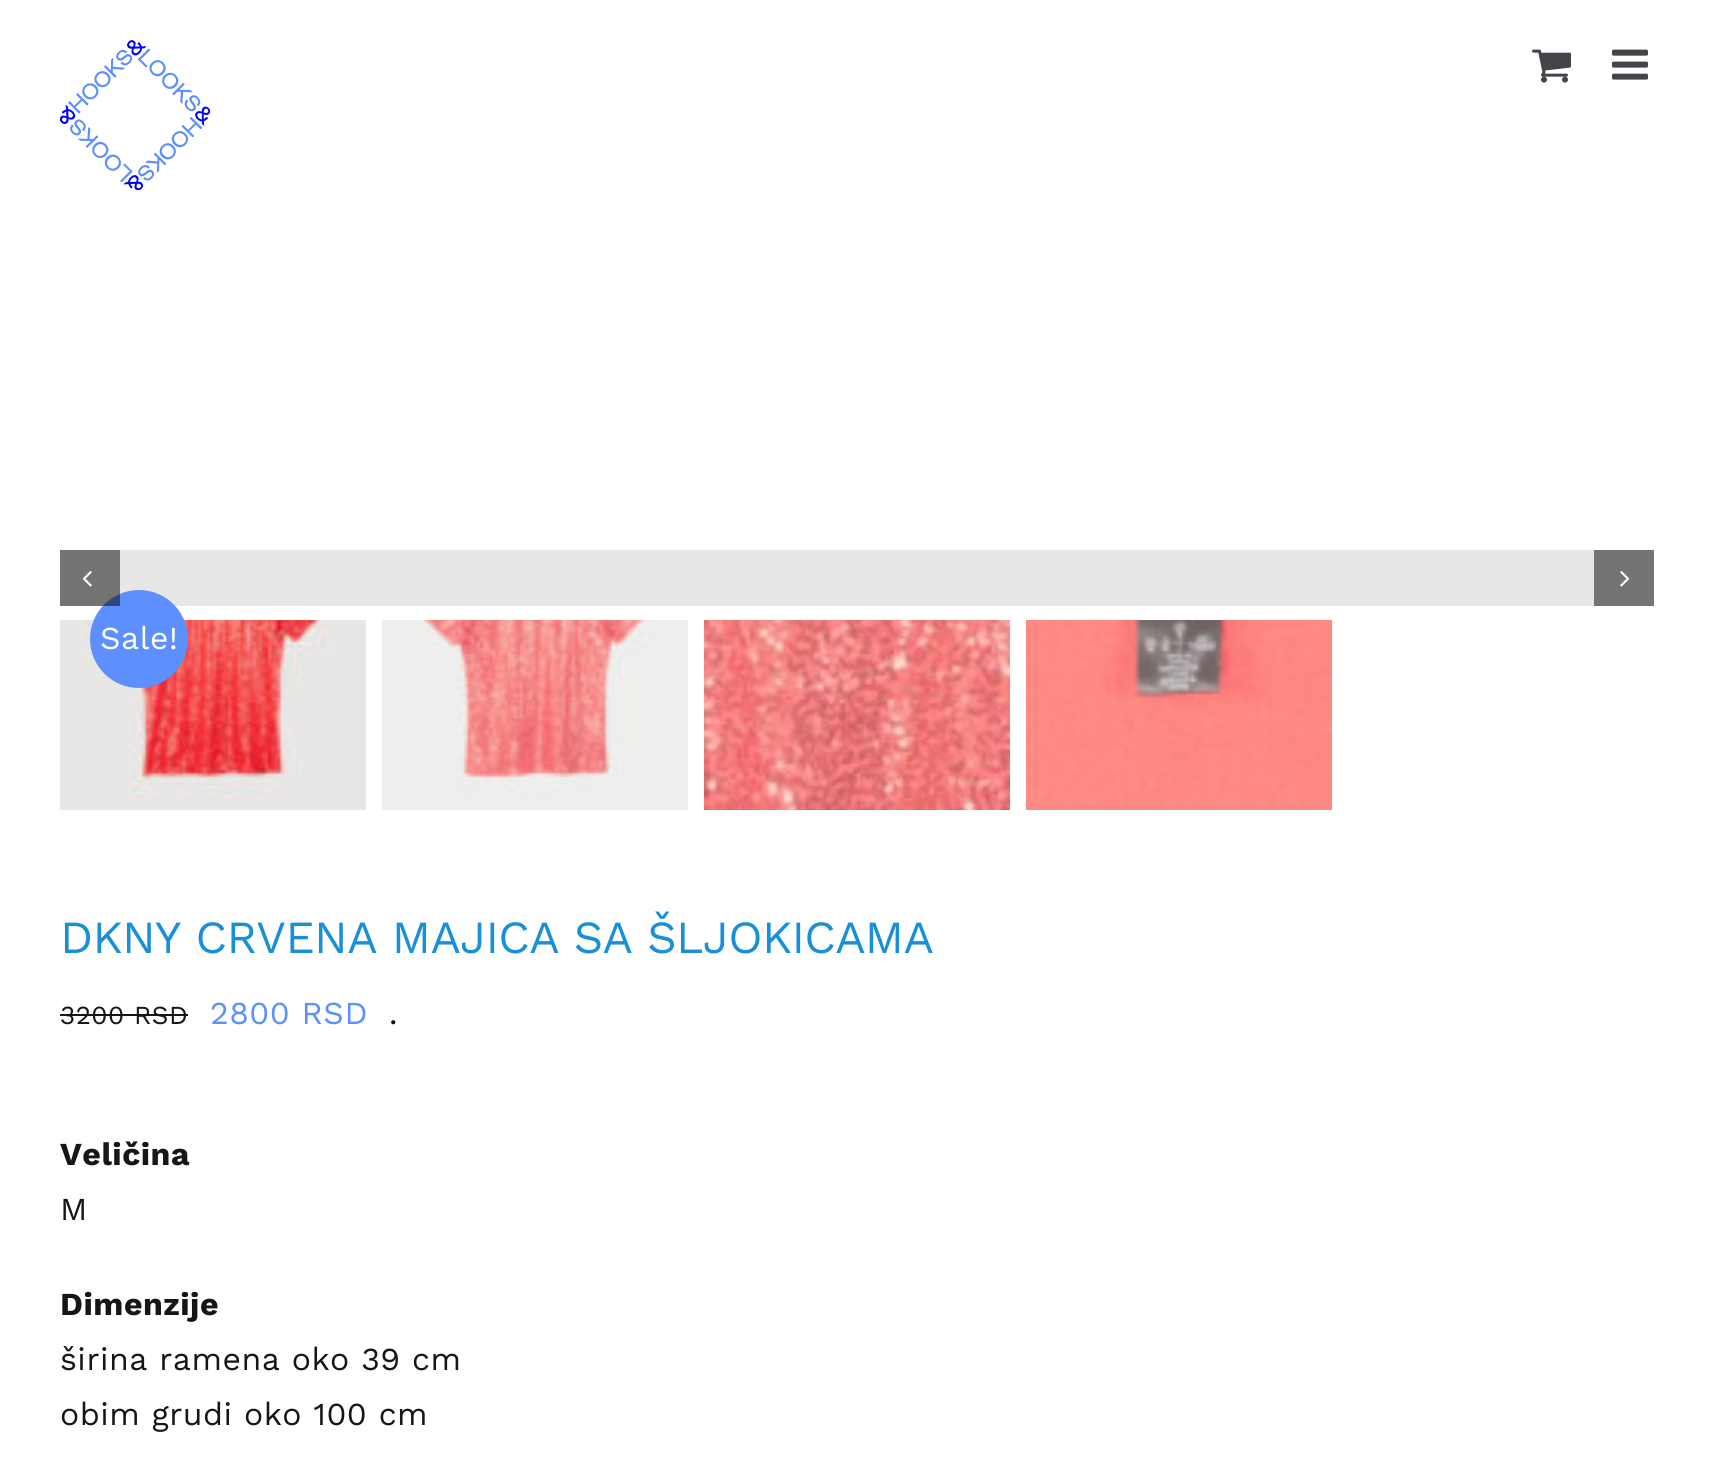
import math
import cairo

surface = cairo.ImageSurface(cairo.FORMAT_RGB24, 1713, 1464)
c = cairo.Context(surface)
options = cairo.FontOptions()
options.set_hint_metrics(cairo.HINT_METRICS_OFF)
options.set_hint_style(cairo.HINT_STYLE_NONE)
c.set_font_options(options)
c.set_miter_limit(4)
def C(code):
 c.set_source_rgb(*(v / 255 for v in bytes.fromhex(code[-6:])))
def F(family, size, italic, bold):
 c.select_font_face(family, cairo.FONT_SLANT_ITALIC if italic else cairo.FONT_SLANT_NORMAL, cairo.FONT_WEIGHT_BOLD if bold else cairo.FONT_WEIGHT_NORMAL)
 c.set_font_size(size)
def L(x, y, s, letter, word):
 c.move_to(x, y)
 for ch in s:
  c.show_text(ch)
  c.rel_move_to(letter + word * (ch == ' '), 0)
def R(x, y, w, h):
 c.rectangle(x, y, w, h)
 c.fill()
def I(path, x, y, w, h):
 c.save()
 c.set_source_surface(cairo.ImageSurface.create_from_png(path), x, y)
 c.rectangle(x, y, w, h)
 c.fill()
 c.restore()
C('ffffff')
c.paint()
I('1.png',60,40,150,150)
I('2.png',1532,49,39,34)
I('3.png',1612,49,36,31)
C('e8e7e5')
R(60,550,1534,56)
I('6.png',60,620,306,190)
C('5e8fff')
c.arc(139,639,49,0,2 * math.pi)
c.fill()
c.set_source_rgba(0,0,0,0.5)
R(60,550,60,56)
I('4.png',82,571,10,16)
C('747473')
R(1594,550,60,56)
I('5.png',1620,571,10,16)
I('7.png',382,620,306,190)
I('8.png',704,620,306,190)
I('9.png',1026,620,306,190)
F('Work Sans',32,0,0)
C('ffffff')
L(100,649,'Sale!',.5,0)
F('Work Sans',46,0,0)
C('198fd9')
L(60,953,'DKNY CRVENA MAJICA SA ŠLJOKICAMA',-.7,0)
F('Work Sans',26,0,0)
C('141617')
L(60,1024,'3200 RSD',.5,0)
R(60,1014,128,2)
F('Work Sans',32,0,0)
C('5e8fff')
L(210,1024,'2800 RSD',.5,0)
C('141617')
L(389,1024,'.',.5,0)
F('Work Sans',32,0,1)
L(60,1165,'Veličina',.5,0)
F('Work Sans',32,0,0)
L(60,1220,'M',.5,0)
F('Work Sans',32,0,1)
L(60,1315,'Dimenzije',.5,0)
F('Work Sans',32,0,0)
L(60,1370,'širina ramena oko 39 cm',.5,0)
L(60,1425,'obim grudi oko 100 cm',.5,0)
surface.write_to_png('o.png')
